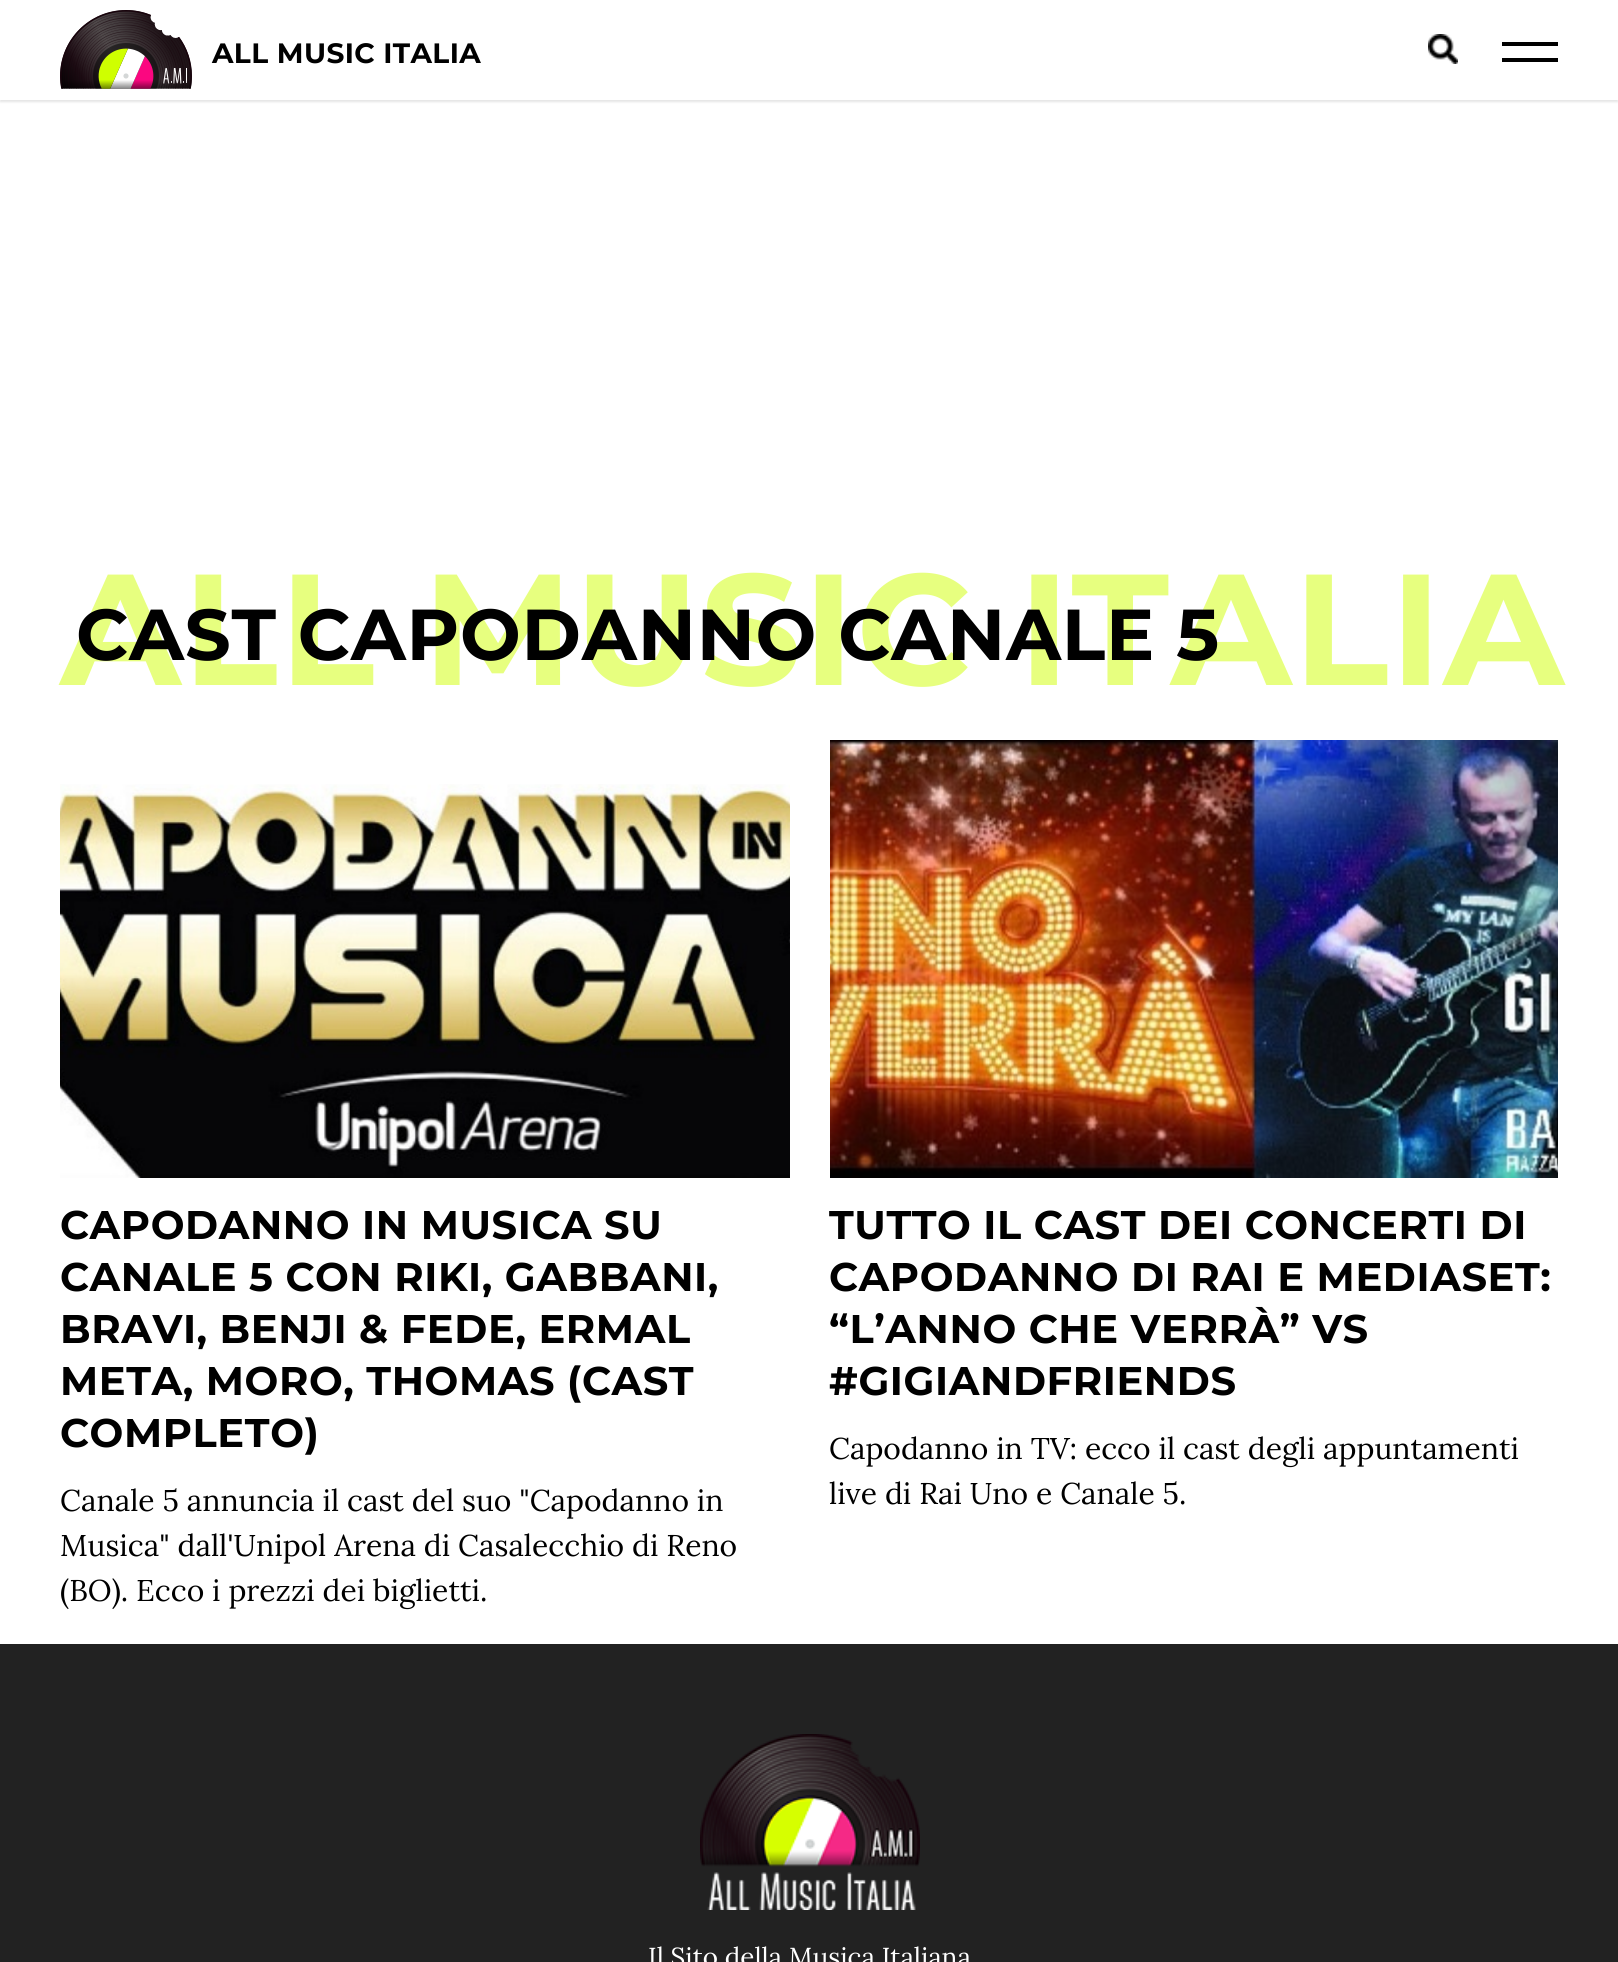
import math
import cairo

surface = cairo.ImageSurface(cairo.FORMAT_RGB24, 1618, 1962)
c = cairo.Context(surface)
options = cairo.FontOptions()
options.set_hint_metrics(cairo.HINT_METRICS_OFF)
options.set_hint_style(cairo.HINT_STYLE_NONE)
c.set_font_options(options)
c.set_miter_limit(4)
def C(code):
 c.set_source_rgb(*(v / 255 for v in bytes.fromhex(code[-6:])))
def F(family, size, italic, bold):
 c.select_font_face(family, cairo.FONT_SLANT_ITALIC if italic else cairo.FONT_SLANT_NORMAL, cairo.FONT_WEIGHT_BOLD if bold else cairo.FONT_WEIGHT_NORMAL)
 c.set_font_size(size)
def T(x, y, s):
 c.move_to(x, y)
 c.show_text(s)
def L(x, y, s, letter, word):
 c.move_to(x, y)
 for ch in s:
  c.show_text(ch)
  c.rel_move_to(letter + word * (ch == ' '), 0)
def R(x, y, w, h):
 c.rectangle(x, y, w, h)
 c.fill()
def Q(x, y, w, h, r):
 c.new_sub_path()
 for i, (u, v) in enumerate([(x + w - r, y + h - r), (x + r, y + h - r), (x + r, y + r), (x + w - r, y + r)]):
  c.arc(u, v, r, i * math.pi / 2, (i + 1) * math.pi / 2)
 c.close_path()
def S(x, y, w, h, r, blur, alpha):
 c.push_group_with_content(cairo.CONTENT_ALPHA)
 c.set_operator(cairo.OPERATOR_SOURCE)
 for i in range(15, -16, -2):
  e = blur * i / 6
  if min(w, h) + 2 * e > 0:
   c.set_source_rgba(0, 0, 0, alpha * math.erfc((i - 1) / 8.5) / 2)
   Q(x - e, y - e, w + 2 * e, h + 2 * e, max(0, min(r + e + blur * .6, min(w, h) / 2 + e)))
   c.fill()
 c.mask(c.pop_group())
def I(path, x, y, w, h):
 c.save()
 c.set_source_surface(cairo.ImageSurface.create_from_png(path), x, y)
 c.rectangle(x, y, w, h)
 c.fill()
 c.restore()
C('222222')
c.paint()
C('ffffff')
R(0,100,1618,1544)
C('e5e5e5')
S(0,2,1618,100,0,1,1)
C('ffffff')
R(0,0,1618,100)
I('1.png',60,10,132,79)
F('Montserrat',28,0,1)
C('000000')
L(212,63,'ALL MUSIC ITALIA',.4,0)
I('2.png',1428,34,30,30)
R(1502,42,56,4)
R(1502,58,56,4)
F('Montserrat',157.75,0,1)
C('e7ff7f')
L(60,685,'ALL MUSIC ITALIA',1.6,0)
F('Montserrat',72,0,1)
C('000000')
L(76,660,'CAST CAPODANNO CANALE 5',.75,0)
I('3.png',60,784,730,394)
F('Montserrat',40,0,1)
L(60,1239,'CAPODANNO IN MUSICA SU',.6,0)
L(60,1291,'CANALE 5 CON RIKI, GABBANI,',.6,0)
L(60,1343,'BRAVI, BENJI & FEDE, ERMAL',.6,0)
L(60,1395,'META, MORO, THOMAS (CAST',.6,0)
L(60,1447,'COMPLETO)',.6,0)
F('Lora',30,0,0)
T(60,1511,'Canale 5 annuncia il cast del suo "Capodanno in')
T(60,1556,'Musica" dall\'Unipol Arena di Casalecchio di Reno')
T(60,1601,'(BO). Ecco i prezzi dei biglietti.')
I('4.png',830,740,728,438)
F('Montserrat',40,0,1)
L(829,1239,'TUTTO IL CAST DEI CONCERTI DI',.6,0)
L(829,1291,'CAPODANNO DI RAI E MEDIASET:',.6,0)
L(829,1343,'“L’ANNO CHE VERRÀ” VS',.6,0)
L(829,1395,'#GIGIANDFRIENDS',.6,0)
F('Lora',30,0,0)
T(829,1459,'Capodanno in TV: ecco il cast degli appuntamenti')
T(829,1504,'live di Rai Uno e Canale 5.')
I('5.png',700,1734,220,176)
F('Lora',26,0,0)
C('ffffff')
T(648,1966,'Il Sito della Musica Italiana')
surface.write_to_png('o.png')
